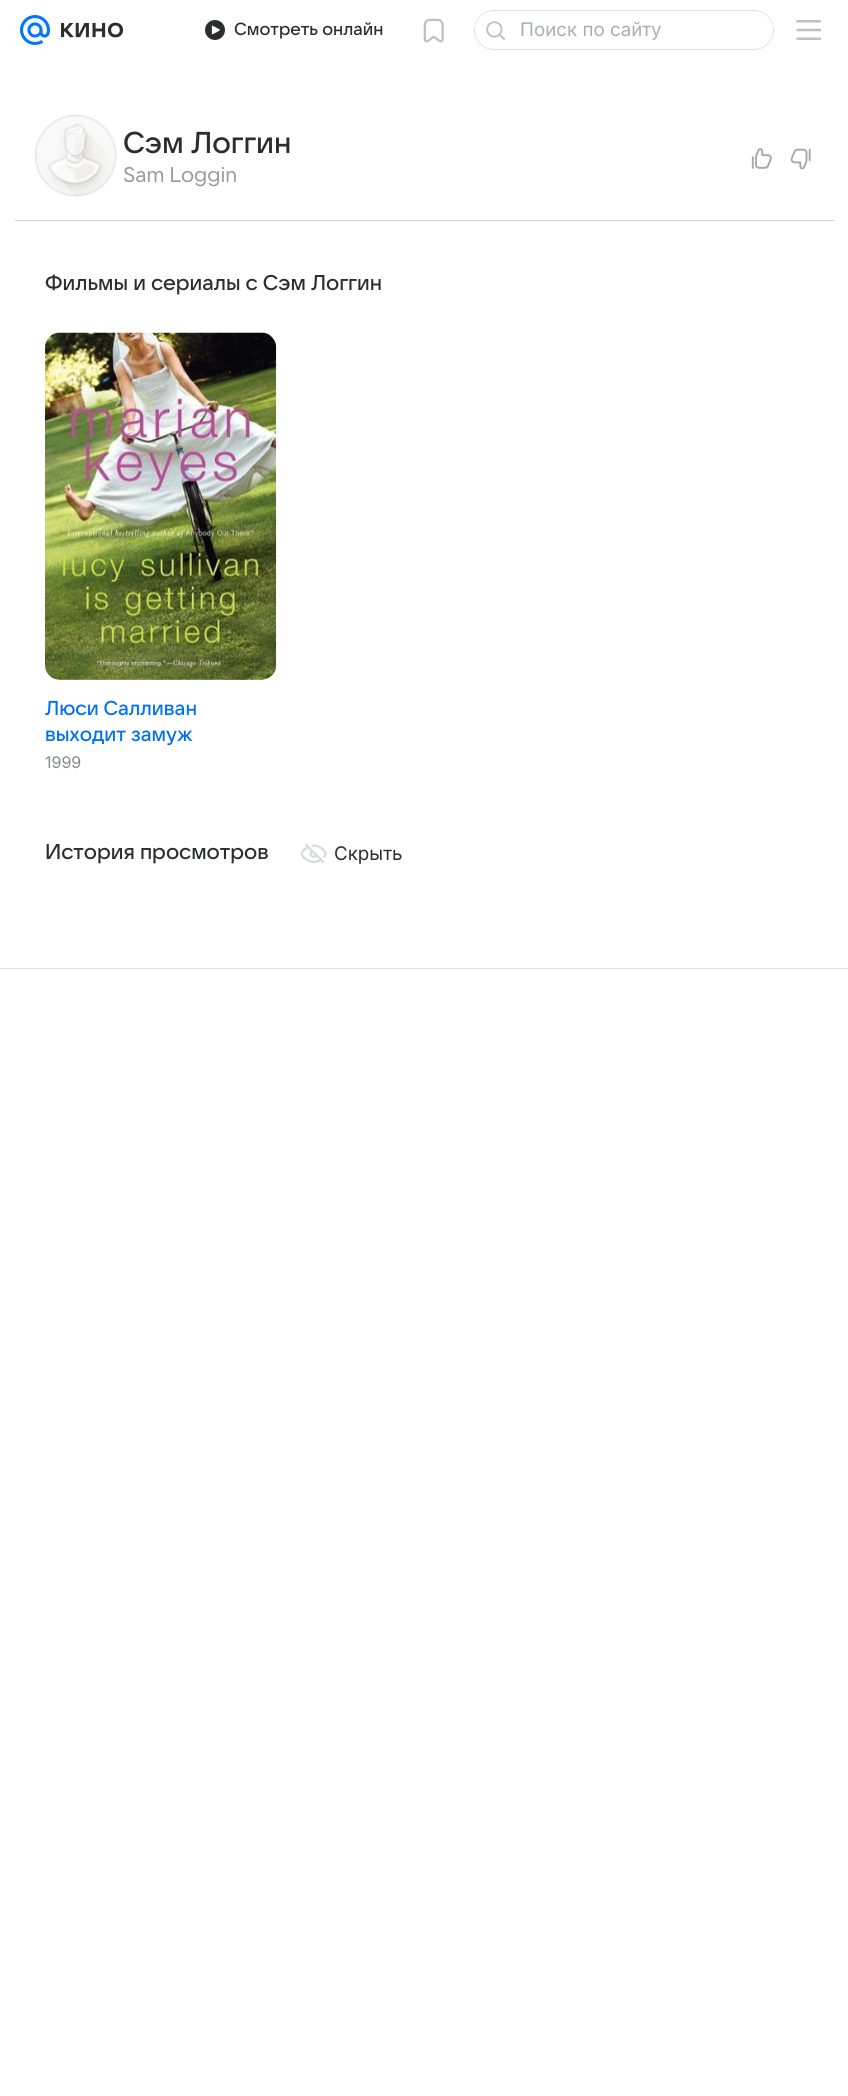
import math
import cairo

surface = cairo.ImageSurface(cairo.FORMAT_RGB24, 848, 2096)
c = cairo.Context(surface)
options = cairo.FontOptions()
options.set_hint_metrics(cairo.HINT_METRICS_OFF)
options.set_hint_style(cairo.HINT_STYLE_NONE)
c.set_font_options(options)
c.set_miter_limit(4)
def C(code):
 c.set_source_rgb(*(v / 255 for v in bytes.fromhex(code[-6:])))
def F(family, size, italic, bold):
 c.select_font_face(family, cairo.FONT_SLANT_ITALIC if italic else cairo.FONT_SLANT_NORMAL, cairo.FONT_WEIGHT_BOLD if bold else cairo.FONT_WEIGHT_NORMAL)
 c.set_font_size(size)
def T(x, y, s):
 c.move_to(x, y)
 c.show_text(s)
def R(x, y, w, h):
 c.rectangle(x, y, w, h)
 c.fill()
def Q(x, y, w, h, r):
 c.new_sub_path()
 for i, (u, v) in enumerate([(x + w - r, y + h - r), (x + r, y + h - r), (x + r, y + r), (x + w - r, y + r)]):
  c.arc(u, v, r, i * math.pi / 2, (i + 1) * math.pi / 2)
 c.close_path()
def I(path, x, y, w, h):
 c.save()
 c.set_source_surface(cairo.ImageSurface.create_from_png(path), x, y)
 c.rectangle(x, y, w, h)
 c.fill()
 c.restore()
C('ffffff')
c.paint()
I('1.png',20,15,30,30)
I('2.png',61,22,63,16)
I('3.png',205,20,20,20)
F('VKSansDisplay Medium',17.5,0,0)
C('2c2d2e')
T(234,35,'Смотреть онлайн')
I('4.png',423,18,21,25)
Q(474.5,10.5,299,39,19.5)
C('e0e2e8')
c.set_line_width(1)
c.stroke()
I('5.png',486,21,19,19)
F('Inter',18.75,0,0)
C('aaadb3')
T(520,36,'Поиск по сайту')
I('6.png',796,20,26,20)
C('d1d1d1')
R(15,220,819,1)
I('7.png',35,115,82,82)
F('VKSansDisplay Medium',30,0,0)
C('2c2d2e')
T(123,153,'Сэм Логгин')
F('VKSansDisplay',21.25,0,0)
C('999999')
T(123,182,'Sam Loggin')
I('8.png',751,148,21,21)
I('9.png',790,148,21,22)
F('VKSansDisplay Medium',21.25,0,0)
C('2c2d2e')
T(45,290,'Фильмы и сериалы с Сэм Логгин')
I('10.png',45,332,232,348)
F('VKSansDisplay Medium',20,0,0)
C('0070f0')
T(45,715,'Люси Салливан')
T(45,741,'выходит замуж')
F('Inter',16,0,0)
C('87898f')
T(45,768,'1999')
F('VKSansDisplay Medium',21.25,0,0)
C('2c2d2e')
T(45,859,'История просмотров')
I('11.png',300,844,27,19)
F('Inter',18.75,0,0)
T(334,860,'Скрыть')
C('e0e2e8')
R(0,968,848,1)
surface.write_to_png('o.png')
